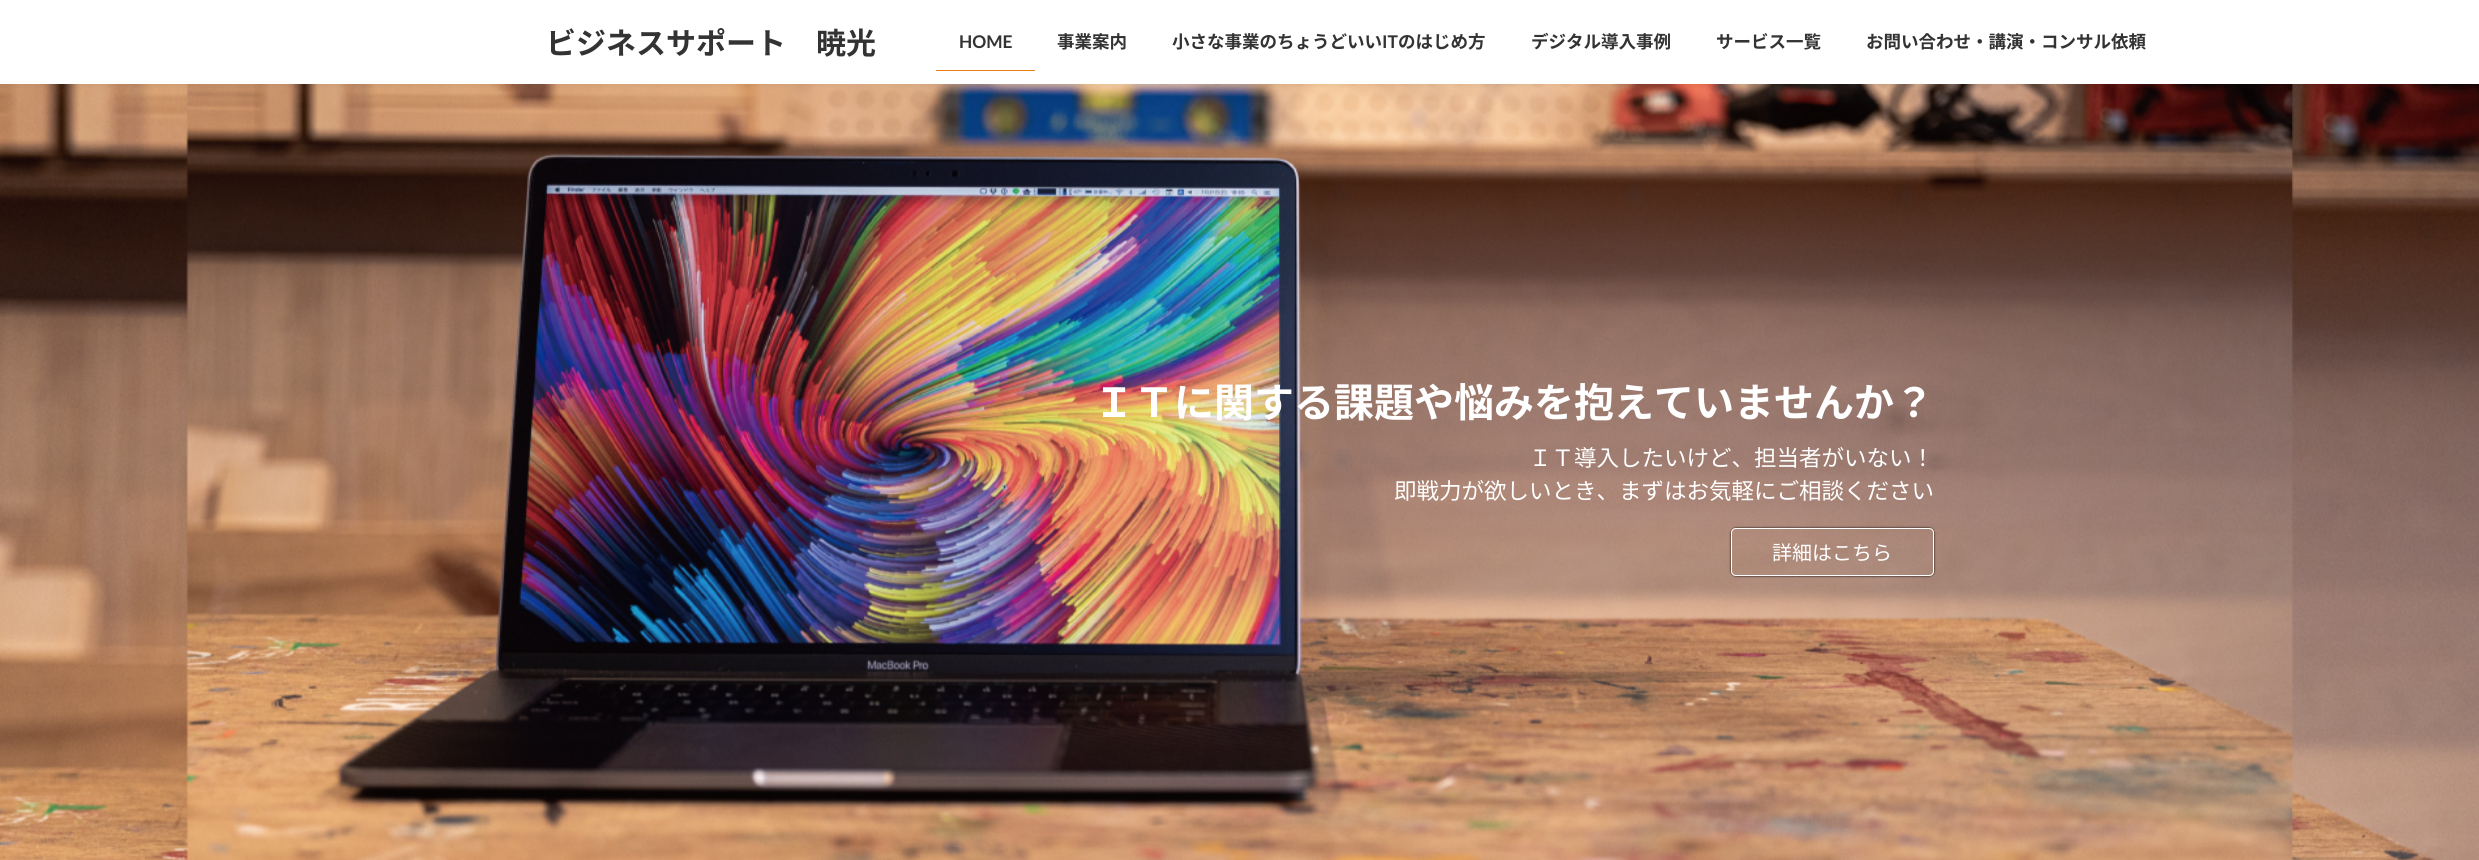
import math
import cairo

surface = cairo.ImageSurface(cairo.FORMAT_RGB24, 2479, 860)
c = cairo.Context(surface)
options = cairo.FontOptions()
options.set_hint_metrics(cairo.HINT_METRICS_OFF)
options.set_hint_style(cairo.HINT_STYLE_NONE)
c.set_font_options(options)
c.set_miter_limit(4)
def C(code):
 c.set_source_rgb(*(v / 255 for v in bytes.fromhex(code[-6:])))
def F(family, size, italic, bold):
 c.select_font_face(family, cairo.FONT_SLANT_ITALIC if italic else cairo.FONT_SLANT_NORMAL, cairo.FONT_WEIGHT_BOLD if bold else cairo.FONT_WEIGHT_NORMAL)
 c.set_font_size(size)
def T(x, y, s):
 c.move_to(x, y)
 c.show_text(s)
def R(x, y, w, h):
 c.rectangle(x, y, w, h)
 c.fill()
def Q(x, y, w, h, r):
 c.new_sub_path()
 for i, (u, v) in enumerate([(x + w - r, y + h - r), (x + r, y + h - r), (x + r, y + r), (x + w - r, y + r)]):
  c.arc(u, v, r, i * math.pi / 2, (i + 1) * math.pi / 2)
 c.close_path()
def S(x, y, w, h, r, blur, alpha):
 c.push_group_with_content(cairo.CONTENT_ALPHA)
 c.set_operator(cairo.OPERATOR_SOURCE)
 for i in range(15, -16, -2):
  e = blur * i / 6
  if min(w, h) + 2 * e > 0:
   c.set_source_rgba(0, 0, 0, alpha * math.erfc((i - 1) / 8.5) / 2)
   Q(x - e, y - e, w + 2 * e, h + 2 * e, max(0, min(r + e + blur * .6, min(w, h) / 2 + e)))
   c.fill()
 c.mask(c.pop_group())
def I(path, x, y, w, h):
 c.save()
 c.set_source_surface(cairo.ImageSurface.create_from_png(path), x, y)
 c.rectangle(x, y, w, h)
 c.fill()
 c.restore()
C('ffffff')
c.paint()
I('1.png',0,84,2479,776)
C('000000')
S(0,1,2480,84,0,2,.05)
C('ffffff')
R(0,0,2479,84)
F('Noto Sans JP',30,0,1)
C('333333')
T(546,54,'ビジネスサポート　暁光')
F('Lato',17.5,0,1)
T(959,48,'HOME')
C('e87e14')
R(936,70,99,1)
F('Noto Sans JP',17.5,0,1)
C('333333')
T(1057,48,'事業案内')
T(1172,48,'小さな事業のちょうどいい')
F('Lato',17.5,0,1)
T(1382,48,'IT')
F('Noto Sans JP',17.5,0,1)
T(1398,48,'のはじめ方')
T(1531,48,'デジタル導入事例')
T(1716,48,'サービス一覧')
T(1866,48,'お問い合わせ・講演・コンサル依頼')
F('Noto Sans JP',40,0,1)
C('ffffff')
T(1094,417,'ＩＴに関する課題や悩みを抱えていませんか？')
F('Noto Sans JP',22.5,0,0)
T(1529,466,'ＩＴ導入したいけど、担当者がいない！')
T(1394,499,'即戦力が欲しいとき、まずはお気軽にご相談ください')
c.save()
c.set_fill_rule(cairo.FILL_RULE_EVEN_ODD)
c.new_path()
c.move_to(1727,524)
c.line_to(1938,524)
c.line_to(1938,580)
c.line_to(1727,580)
c.close_path()
c.move_to(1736,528)
c.line_to(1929,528)
c.curve_to(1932,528,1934,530,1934,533)
c.line_to(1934,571)
c.curve_to(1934,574,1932,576,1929,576)
c.line_to(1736,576)
c.curve_to(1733,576,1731,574,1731,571)
c.line_to(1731,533)
c.curve_to(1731,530,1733,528,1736,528)
c.close_path()
c.clip()
C('000000')
S(1731,528,203,48,5,1,1)
c.restore()
Q(1731.5,528.5,202,47,4.5)
c.set_line_width(1)
c.stroke()
F('Noto Sans JP',20,0,0)
T(1772,560,'詳細はこちら')
surface.write_to_png('o.png')
